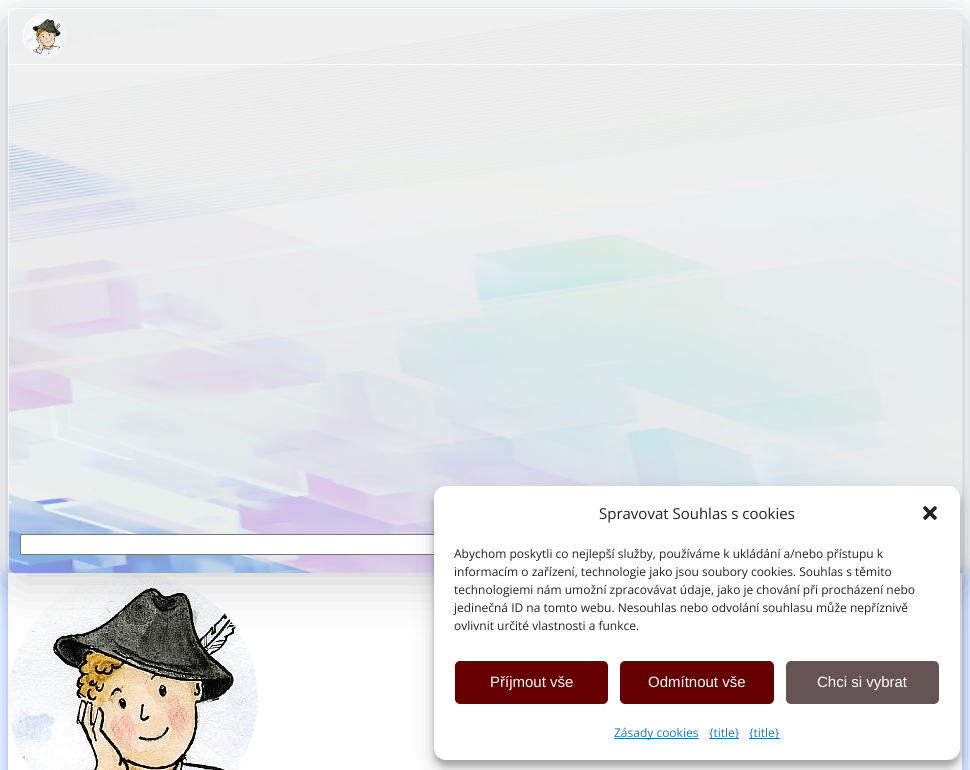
import math
import cairo

surface = cairo.ImageSurface(cairo.FORMAT_RGB24, 970, 770)
c = cairo.Context(surface)
options = cairo.FontOptions()
options.set_hint_metrics(cairo.HINT_METRICS_OFF)
options.set_hint_style(cairo.HINT_STYLE_NONE)
c.set_font_options(options)
c.set_miter_limit(4)
def C(code):
 c.set_source_rgb(*(v / 255 for v in bytes.fromhex(code[-6:])))
def F(family, size, italic, bold):
 c.select_font_face(family, cairo.FONT_SLANT_ITALIC if italic else cairo.FONT_SLANT_NORMAL, cairo.FONT_WEIGHT_BOLD if bold else cairo.FONT_WEIGHT_NORMAL)
 c.set_font_size(size)
def T(x, y, s):
 c.move_to(x, y)
 c.show_text(s)
def R(x, y, w, h):
 c.rectangle(x, y, w, h)
 c.fill()
def Q(x, y, w, h, r):
 c.new_sub_path()
 for i, (u, v) in enumerate([(x + w - r, y + h - r), (x + r, y + h - r), (x + r, y + r), (x + w - r, y + r)]):
  c.arc(u, v, r, i * math.pi / 2, (i + 1) * math.pi / 2)
 c.close_path()
def S(x, y, w, h, r, blur, alpha):
 c.push_group_with_content(cairo.CONTENT_ALPHA)
 c.set_operator(cairo.OPERATOR_SOURCE)
 for i in range(15, -16, -2):
  e = blur * i / 6
  if min(w, h) + 2 * e > 0:
   c.set_source_rgba(0, 0, 0, alpha * math.erfc((i - 1) / 8.5) / 2)
   Q(x - e, y - e, w + 2 * e, h + 2 * e, max(0, min(r + e + blur * .6, min(w, h) / 2 + e)))
   c.fill()
 c.mask(c.pop_group())
def I(path, x, y, w, h):
 c.save()
 c.set_source_surface(cairo.ImageSurface.create_from_png(path), x, y)
 c.rectangle(x, y, w, h)
 c.fill()
 c.restore()
C('ffffff')
c.paint()
C('00122e')
S(8,16,954,565,8,18,.16)
C('004dff')
S(8,577,954,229,0,12,.5)
C('ffffff')
R(8,573,954,197)
I('3.png',8,574,250,196)
C('000000')
S(18,36,934,545,0,25,.2)
I('1.png',8,9,954,564)
c.save()
c.rectangle(8,8,954,56)
c.clip()
C('ffffff')
c.set_fill_rule(cairo.FILL_RULE_EVEN_ODD)
c.new_path()
c.move_to(-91,-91)
c.line_to(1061,-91)
c.line_to(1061,163)
c.line_to(-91,163)
c.close_path()
c.move_to(9,9)
c.line_to(963,9)
c.line_to(963,65)
c.line_to(9,65)
c.close_path()
c.fill()
c.restore()
C('ffffff')
R(8,64,954,1)
c.set_source_rgba(1,1,1,0.75)
c.new_path()
c.move_to(17,9)
c.line_to(955,9)
c.curve_to(957,9,959,10,961,12)
c.curve_to(959,10,957,8,954,8)
c.line_to(16,8)
c.curve_to(12,8,8,12,8,16)
c.line_to(8,565)
c.curve_to(8,568,10,570,12,572)
c.curve_to(10,570,9,568,9,566)
c.line_to(9,17)
c.curve_to(9,13,13,9,17,9)
c.close_path()
c.fill()
c.set_source_rgba(1,1,1,0.25)
c.arc(45,36,22,0,2 * math.pi)
c.fill()
c.set_source_rgba(1,1,1,0.75)
c.new_path()
c.move_to(46,15)
c.curve_to(50.5,15,54.5,16,57.5,18)
c.curve_to(36.5,3.5,11.5,30.5,28,50)
c.curve_to(19.5,37.5,25.5,15,46,15)
c.close_path()
c.fill()
I('2.png',26,17,38,38)
C('ffffff')
Q(20.5,534.5,817,20,1.5)
c.fill_preserve()
C('767676')
c.set_line_width(1)
c.stroke()
C('000000')
S(434,492,526,274,12,3,.23)
S(434,496,526,274,12,10,.19)
C('ffffff')
Q(434,486,526,274,12)
c.fill()
F('Open Sans',15,0,0)
C('222222')
T(599,519,'Spravovat Souhlas s cookies')
I('4.png',923,506,14,14)
F('Open Sans',12,0,0)
T(454,558,'Abychom poskytli co nejlepší služby, používáme k ukládání a/nebo přístupu k')
T(454,576,'informacím o zařízení, technologie jako jsou soubory cookies. Souhlas s těmito')
T(454,594,'technologiemi nám umožní zpracovávat údaje, jako je chování při procházení nebo')
T(454,612,'jedinečná ID na tomto webu. Nesouhlas nebo odvolání souhlasu může nepříznivě')
T(454,630,'ovlivnit určité vlastnosti a funkce.')
C('660000')
Q(454.5,660.5,154,44,5.5)
c.fill_preserve()
C('ffffff')
c.stroke()
F('Liberation Sans',15,0,0)
T(490,687,'Příjmout vše')
C('660000')
Q(619.5,660.5,155,44,5.5)
c.fill_preserve()
C('ffffff')
c.stroke()
T(648,687,'Odmítnout vše')
C('665353')
Q(785.5,660.5,154,44,5.5)
c.fill_preserve()
C('ffffff')
c.stroke()
T(817,687,'Chci si vybrat')
C('1e73be')
R(614,738,85,1)
F('Open Sans',12,0,0)
T(614,737,'Zásady cookies')
R(709,738,30,1)
T(709,737,'{title}')
R(749,738,31,1)
T(749,737,'{title}')
surface.write_to_png('o.png')
